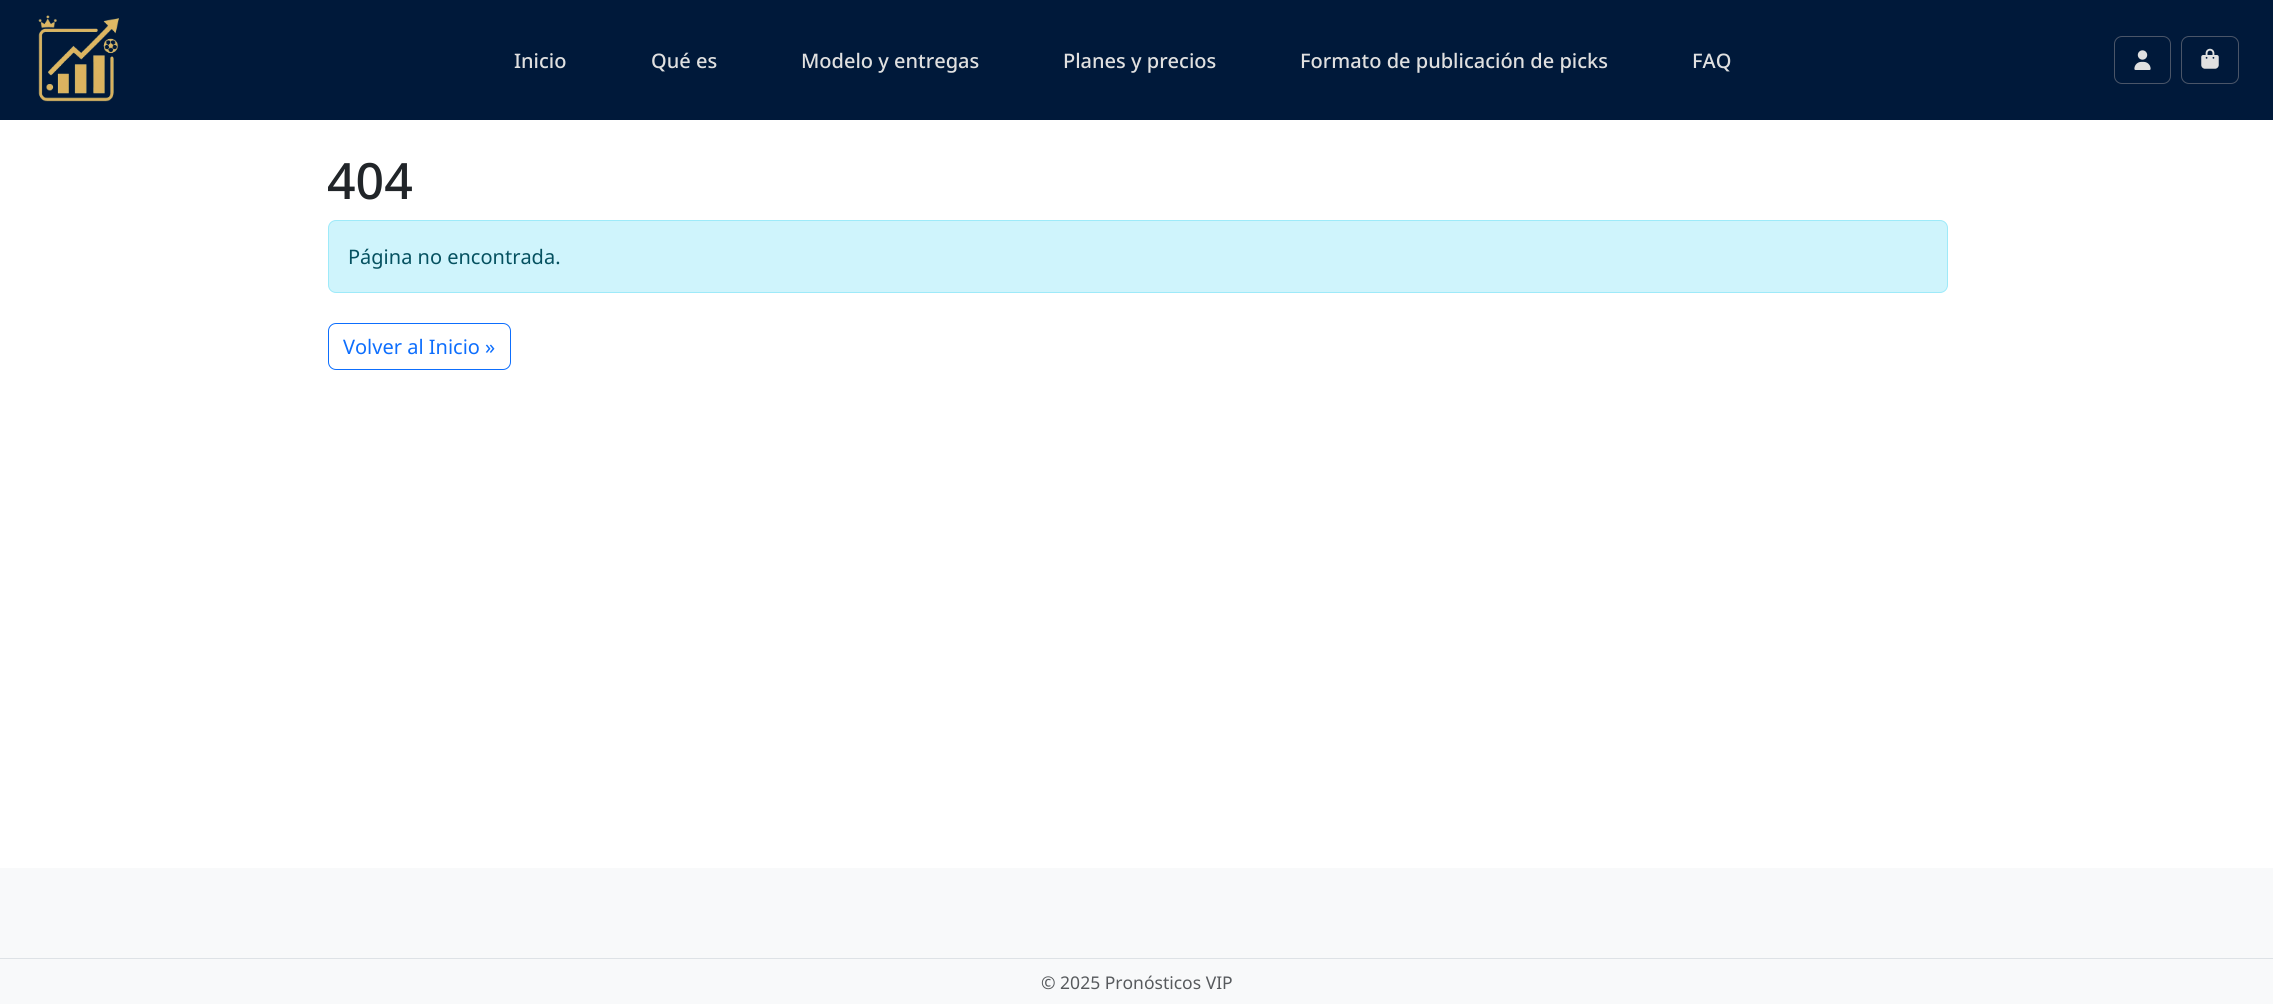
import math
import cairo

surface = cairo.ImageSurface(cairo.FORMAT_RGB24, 2273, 1004)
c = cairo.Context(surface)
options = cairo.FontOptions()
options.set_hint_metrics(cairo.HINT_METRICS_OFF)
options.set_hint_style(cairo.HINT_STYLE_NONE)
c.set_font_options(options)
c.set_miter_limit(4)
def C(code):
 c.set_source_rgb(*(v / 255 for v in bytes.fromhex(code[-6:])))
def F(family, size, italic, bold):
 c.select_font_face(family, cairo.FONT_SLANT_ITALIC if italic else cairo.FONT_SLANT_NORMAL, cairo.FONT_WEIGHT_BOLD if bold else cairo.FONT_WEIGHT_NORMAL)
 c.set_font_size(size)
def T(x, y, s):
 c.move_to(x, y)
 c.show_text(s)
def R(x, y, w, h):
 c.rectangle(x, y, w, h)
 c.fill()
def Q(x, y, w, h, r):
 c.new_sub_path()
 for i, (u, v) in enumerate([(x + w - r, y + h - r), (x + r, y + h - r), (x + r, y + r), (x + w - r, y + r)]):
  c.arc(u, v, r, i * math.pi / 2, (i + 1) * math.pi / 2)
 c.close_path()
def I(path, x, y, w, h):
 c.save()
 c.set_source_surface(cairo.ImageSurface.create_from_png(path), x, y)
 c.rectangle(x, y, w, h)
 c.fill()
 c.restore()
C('ffffff')
c.paint()
C('00193a')
R(0,0,2273,120)
I('1.png',38,15,81,87)
F('Noto Sans Medium',20,0,0)
C('e0e0e0')
T(514,68,'Inicio')
T(651,68,'Qué es')
T(801,68,'Modelo y entregas')
T(1063,68,'Planes y precios')
T(1300,68,'Formato de publicación de picks')
T(1692,68,'FAQ')
Q(2114.5,36.5,56,47,7.5)
C('4a5568')
c.set_line_width(1)
c.stroke()
I('2.png',2134,50,17,20)
Q(2181.5,36.5,57,47,7.5)
c.stroke()
I('3.png',2201,48,18,21)
F('Noto Sans Medium',50,0,0)
C('212529')
T(327,199,'404')
C('cff4fc')
Q(328.5,220.5,1619,72,7.5)
c.fill_preserve()
C('9eeaf9')
c.stroke()
F('Noto Sans',20,0,0)
C('055160')
T(348,264,'Página no encontrada.')
Q(328.5,323.5,182,46,7.5)
C('0d6efd')
c.stroke()
T(343,354,'Volver al Inicio »')
C('f8f9fa')
R(0,868,2273,90)
R(0,959,2273,45)
C('dee2e6')
R(0,958,2273,1)
F('Noto Sans',17.5,0,0)
C('575a5d')
T(1041,989,'© 2025 Pronósticos VIP')
surface.write_to_png('o.png')
